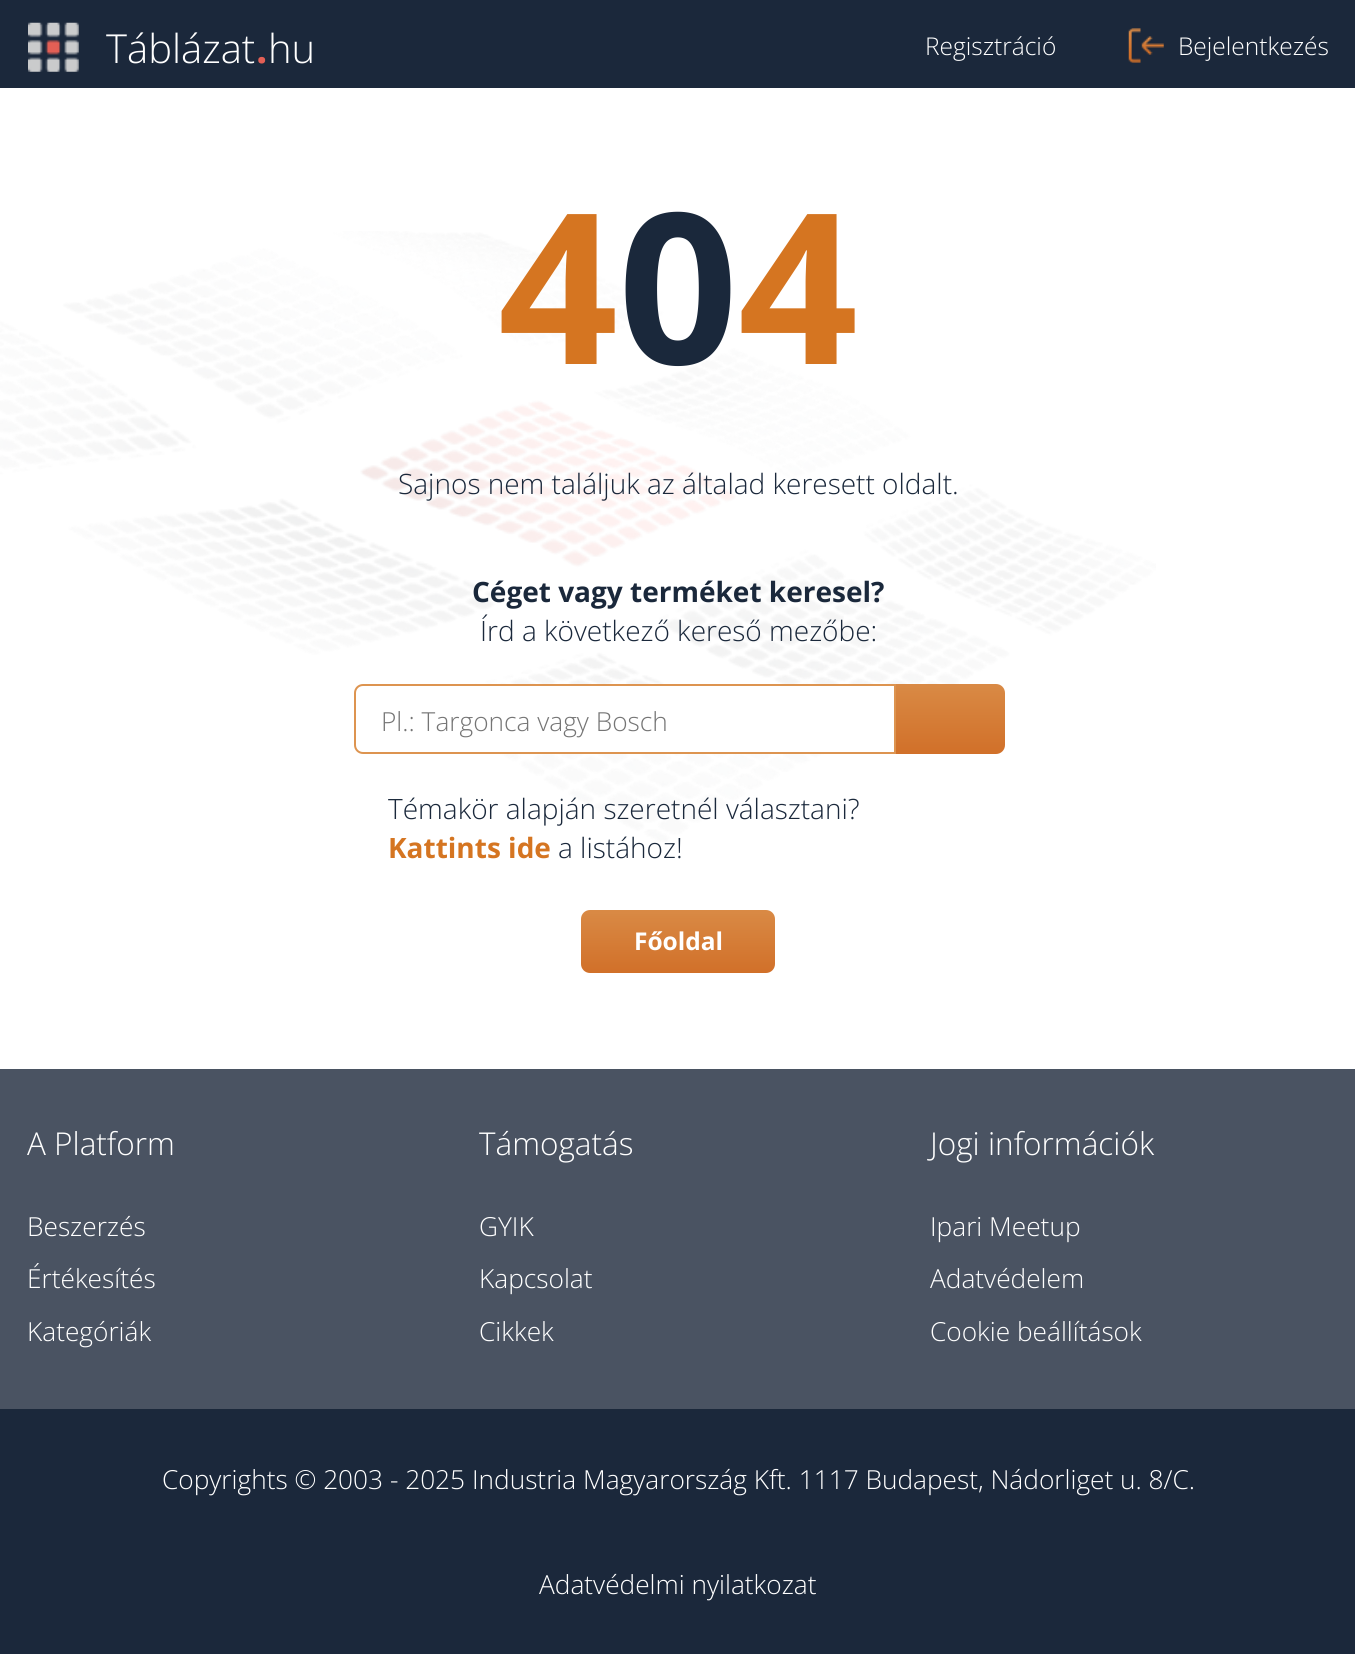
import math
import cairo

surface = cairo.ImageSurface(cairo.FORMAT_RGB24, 1355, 1675)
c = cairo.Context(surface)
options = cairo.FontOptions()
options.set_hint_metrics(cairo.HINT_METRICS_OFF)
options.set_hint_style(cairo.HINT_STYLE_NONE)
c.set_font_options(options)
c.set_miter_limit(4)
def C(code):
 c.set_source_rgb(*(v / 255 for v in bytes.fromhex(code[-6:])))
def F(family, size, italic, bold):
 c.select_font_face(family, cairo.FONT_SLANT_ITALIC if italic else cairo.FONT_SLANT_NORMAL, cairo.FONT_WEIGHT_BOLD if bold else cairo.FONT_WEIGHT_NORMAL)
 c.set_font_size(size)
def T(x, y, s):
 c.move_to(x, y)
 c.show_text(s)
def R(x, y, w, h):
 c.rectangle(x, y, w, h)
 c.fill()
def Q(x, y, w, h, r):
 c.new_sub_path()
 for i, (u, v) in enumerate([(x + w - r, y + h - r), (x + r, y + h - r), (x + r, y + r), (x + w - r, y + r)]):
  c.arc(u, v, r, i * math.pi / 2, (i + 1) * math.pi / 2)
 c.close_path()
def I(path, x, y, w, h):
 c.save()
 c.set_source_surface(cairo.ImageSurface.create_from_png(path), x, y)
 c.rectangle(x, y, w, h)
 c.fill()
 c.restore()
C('ffffff')
c.paint()
C('1b283b')
R(0,0,1355,88)
I('1.png',28,22,51,50)
F('Open Sans Light',40,0,0)
C('ffffff')
T(106,63,'Táblázat')
F('Open Sans',40,0,1)
C('e35f55')
T(256,63,'.')
F('Open Sans Light',40,0,0)
C('ffffff')
T(268,63,'hu')
F('Open Sans Light',24.5,0,0)
T(925,55,'Regisztráció')
I('2.png',1128,28,36,35)
T(1178,55,'Bejelentkezés')
I('3.png',0,231,1156,611)
F('Open Sans',210,0,1)
C('d57521')
T(498,364,'4')
C('1a283b')
T(618,364,'0')
C('d57521')
T(738,364,'4')
F('Open Sans Light',28,0,0)
C('1a283b')
T(398,494,'Sajnos nem találjuk az általad keresett oldalt.')
F('Open Sans',28,0,1)
T(472,602,'Céget vagy terméket keresel?')
F('Open Sans Light',28,0,0)
T(480,641,'Írd a következő kereső mezőbe:')
C('ffffff')
c.new_path()
c.move_to(363,685)
c.line_to(895,685)
c.line_to(895,753)
c.line_to(363,753)
c.curve_to(358.5,753,355,749.5,355,745)
c.line_to(355,693)
c.curve_to(355,688.5,358.5,685,363,685)
c.close_path()
c.fill_preserve()
C('dd9450')
c.stroke()
F('Open Sans Light',26.25,0,0)
C('757575')
T(381,731,'Pl.: Targonca vagy Bosch')
gradient = cairo.LinearGradient(950,684,950,754)
gradient.add_color_stop_rgba(0,0.851,0.541,0.271,1)
gradient.add_color_stop_rgba(1,0.82,0.439,0.161,1)
c.set_source(gradient)
c.new_path()
c.move_to(896,684)
c.line_to(996,684)
c.curve_to(1001,684,1005,688,1005,693)
c.line_to(1005,745)
c.curve_to(1005,750,1001,754,996,754)
c.line_to(896,754)
c.close_path()
c.fill()
F('Open Sans Light',28,0,0)
C('1a283b')
T(388,819,'Témakör alapján szeretnél választani?')
F('Open Sans',28,0,1)
C('d57521')
T(388,858,'Kattints ide')
F('Open Sans Light',28,0,0)
C('1a283b')
T(558,858,'a listához!')
gradient = cairo.LinearGradient(678,910,678,973)
gradient.add_color_stop_rgba(0,0.851,0.541,0.271,1)
gradient.add_color_stop_rgba(1,0.82,0.439,0.161,1)
c.set_source(gradient)
Q(581,910,194,63,9)
c.fill()
F('Open Sans',24.5,0,1)
C('ffffff')
T(634,950,'Főoldal')
C('4a5362')
R(0,1069,1355,340)
F('Open Sans Light',31.5,0,0)
C('ffffff')
T(27,1155,'A Platform')
F('Open Sans Light',26.25,0,0)
T(27,1236,'Beszerzés')
T(27,1288,'Értékesítés')
T(27,1341,'Kategóriák')
F('Open Sans Light',31.5,0,0)
T(479,1155,'Támogatás')
F('Open Sans Light',26.25,0,0)
T(479,1236,'GYIK')
T(479,1288,'Kapcsolat')
T(479,1341,'Cikkek')
F('Open Sans Light',31.5,0,0)
T(930,1155,'Jogi információk')
F('Open Sans Light',26.25,0,0)
T(930,1236,'Ipari Meetup')
T(930,1288,'Adatvédelem')
T(930,1341,'Cookie beállítások')
C('1b283b')
R(0,1409,1355,245)
C('ffffff')
T(162,1489,'Copyrights © 2003 - 2025 Industria Magyarország Kft. 1117 Budapest, Nádorliget u. 8/C.')
T(539,1594,'Adatvédelmi nyilatkozat')
surface.write_to_png('o.png')
